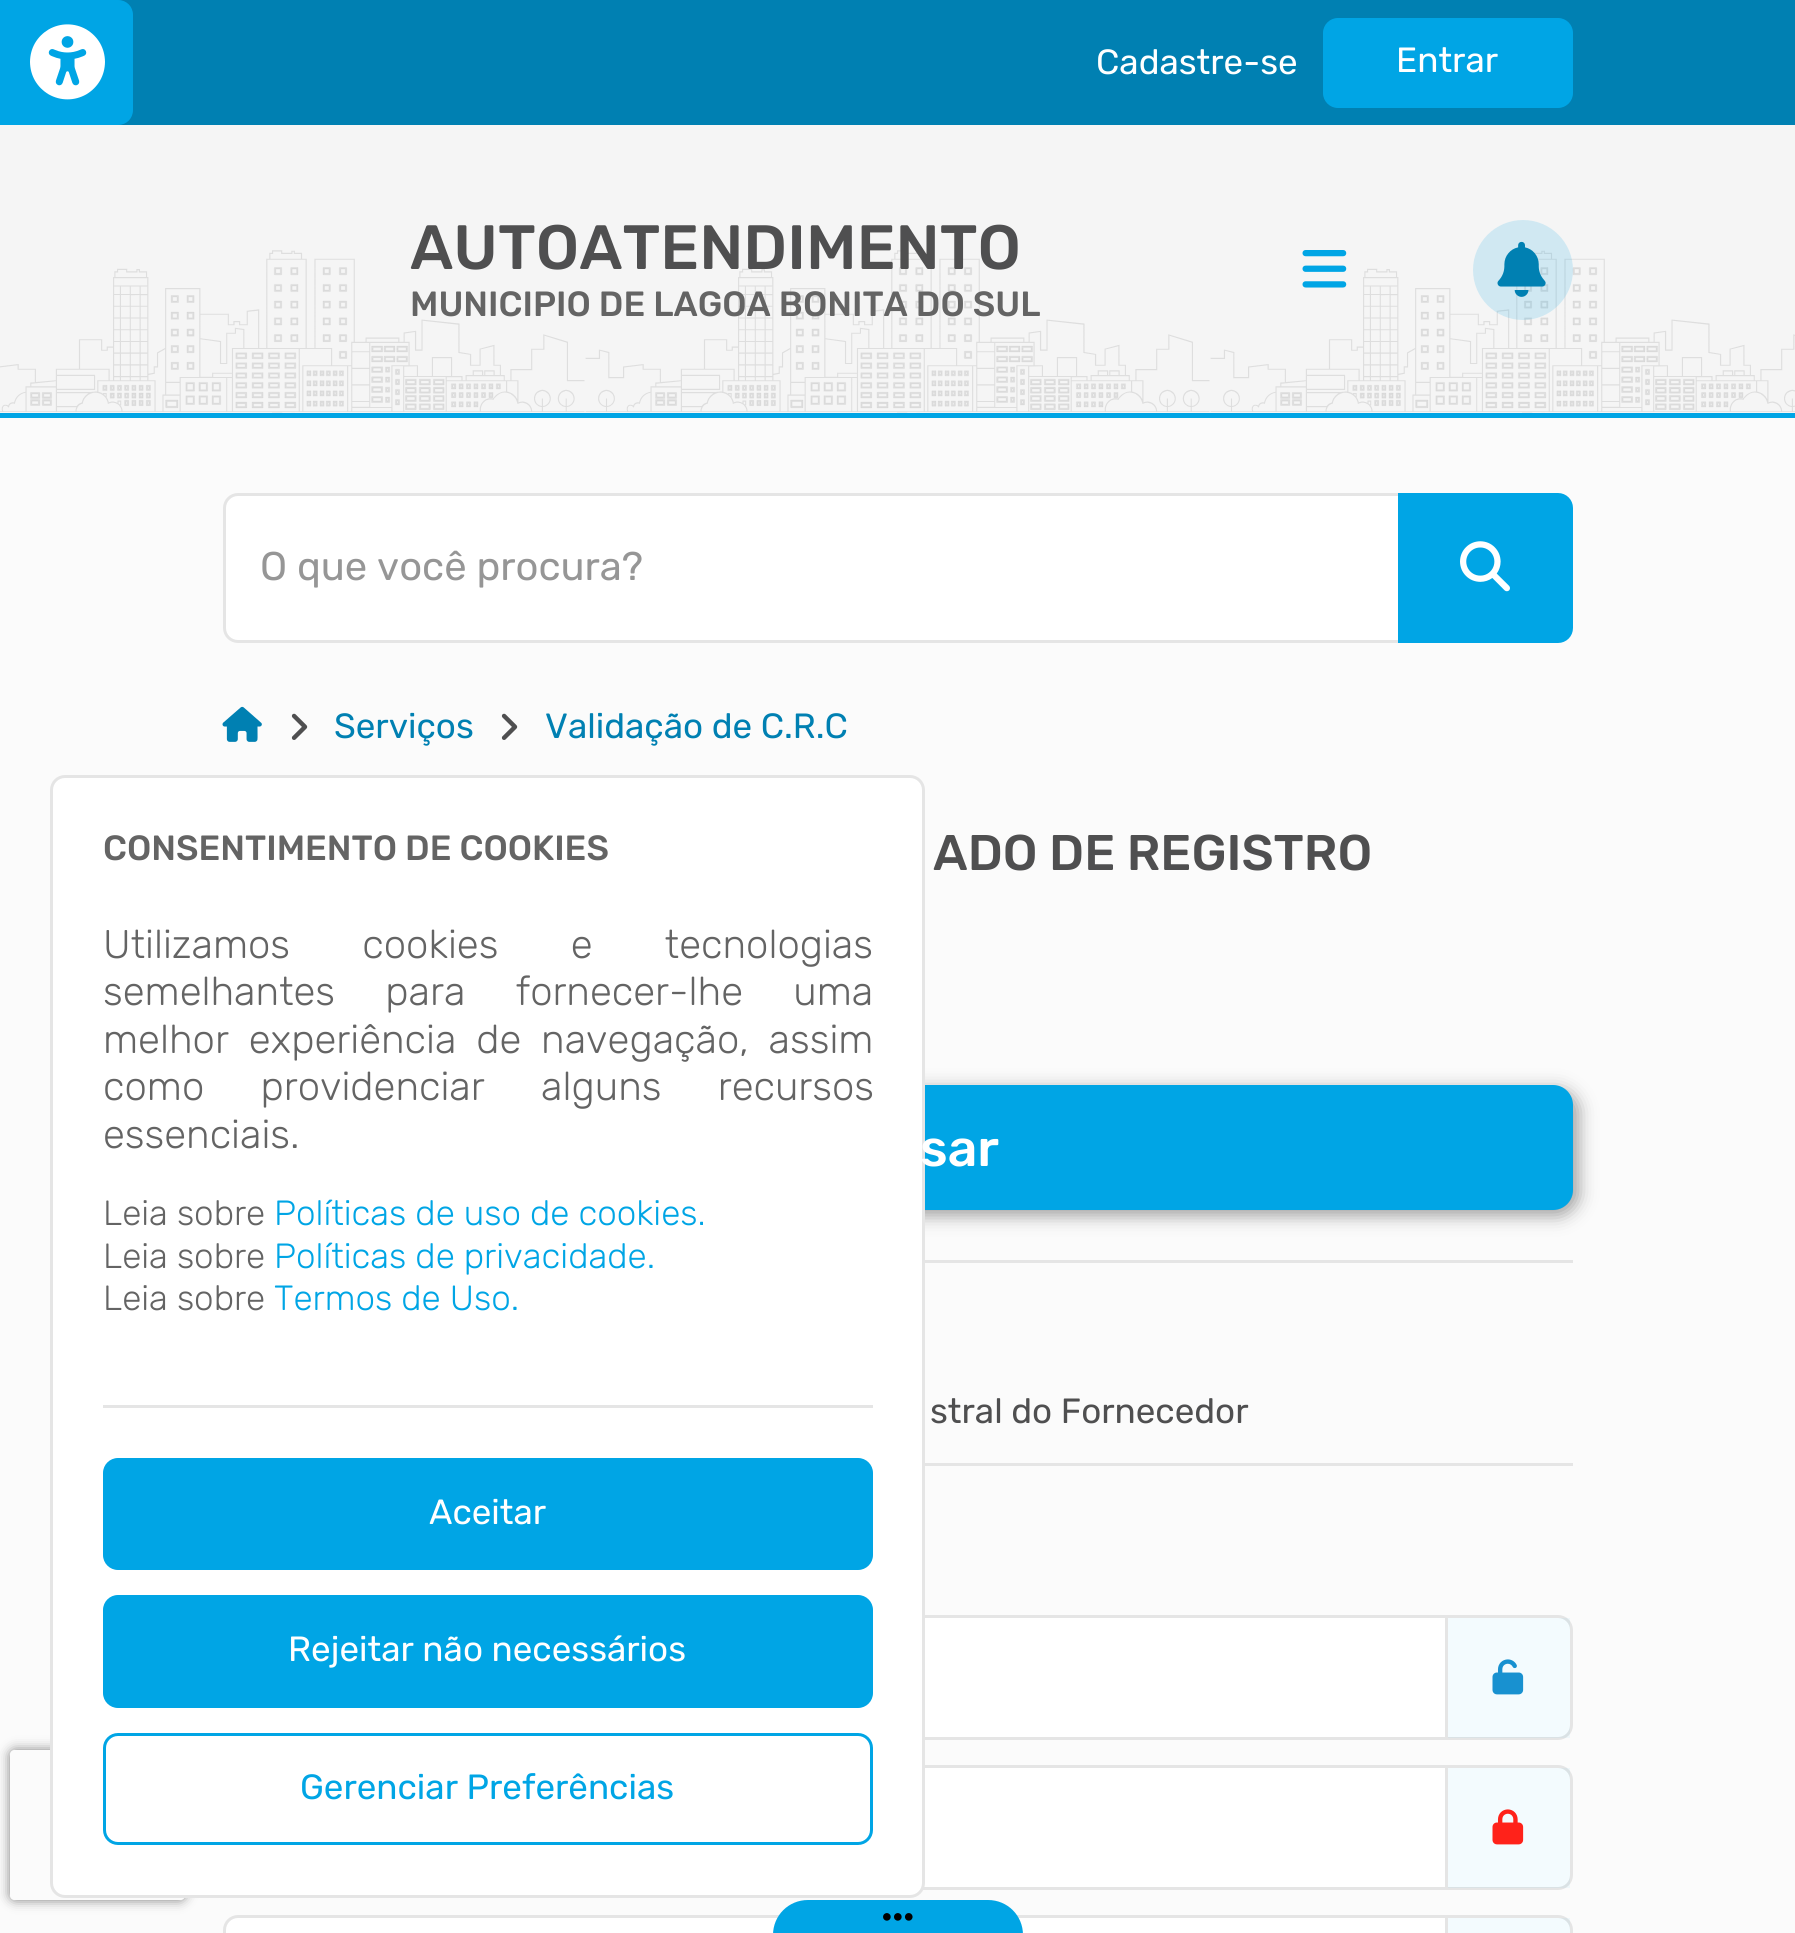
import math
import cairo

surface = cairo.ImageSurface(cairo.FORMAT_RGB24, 1795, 1933)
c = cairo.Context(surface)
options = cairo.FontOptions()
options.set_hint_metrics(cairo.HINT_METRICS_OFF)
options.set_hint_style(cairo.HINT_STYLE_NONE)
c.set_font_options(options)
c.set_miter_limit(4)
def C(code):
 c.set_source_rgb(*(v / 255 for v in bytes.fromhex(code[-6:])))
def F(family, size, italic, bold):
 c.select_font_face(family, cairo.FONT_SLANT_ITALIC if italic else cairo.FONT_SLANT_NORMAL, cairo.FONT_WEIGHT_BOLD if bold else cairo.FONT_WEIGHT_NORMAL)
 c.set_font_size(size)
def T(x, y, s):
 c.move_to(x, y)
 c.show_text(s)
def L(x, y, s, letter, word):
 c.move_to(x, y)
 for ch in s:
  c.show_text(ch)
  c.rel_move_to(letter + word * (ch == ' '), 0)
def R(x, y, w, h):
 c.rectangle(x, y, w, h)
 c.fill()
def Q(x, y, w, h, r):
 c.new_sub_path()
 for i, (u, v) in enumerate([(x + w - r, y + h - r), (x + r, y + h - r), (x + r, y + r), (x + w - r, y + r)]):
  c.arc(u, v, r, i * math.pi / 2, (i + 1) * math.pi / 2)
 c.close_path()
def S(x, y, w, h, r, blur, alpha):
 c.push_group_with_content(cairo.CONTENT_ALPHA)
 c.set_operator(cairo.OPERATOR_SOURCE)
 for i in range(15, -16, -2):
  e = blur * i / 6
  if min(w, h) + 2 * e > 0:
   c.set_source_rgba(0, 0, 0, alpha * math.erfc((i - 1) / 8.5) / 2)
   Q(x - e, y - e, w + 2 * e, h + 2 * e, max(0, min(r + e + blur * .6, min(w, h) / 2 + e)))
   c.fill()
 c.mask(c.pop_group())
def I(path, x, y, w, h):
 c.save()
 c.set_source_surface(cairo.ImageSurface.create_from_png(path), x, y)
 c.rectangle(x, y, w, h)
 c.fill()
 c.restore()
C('fbfbfb')
c.paint()
C('00a5e5')
R(0,413,1795,5)
C('0080b2')
R(118,0,1677,125)
F('Rubik',35,0,0)
C('ffffff')
T(1096,74,'Cadastre-se')
C('00a5e5')
Q(1323,18,250,90,15)
c.fill()
C('ffffff')
T(1396,72,'Entrar')
C('f5f5f5')
R(0,125,1795,288)
I('1.png',0,250,1795,163)
F('Rubik Medium',62.5,0,0)
C('4f4f50')
T(410,269,'AUTOATENDIMENTO')
F('Rubik Medium',35,0,0)
C('646464')
T(410,316,'MUNICIPIO DE LAGOA BONITA DO SUL')
I('2.png',1302,250,45,38)
c.set_source_rgba(0,0.647,0.898,0.15)
c.arc(1523,270,50,0,2 * math.pi)
c.fill()
I('3.png',1497,241,49,56)
C('00a5e5')
c.new_path()
c.move_to(0,0)
c.line_to(118,0)
c.curve_to(126.5,0,133,6.5,133,15)
c.line_to(133,110)
c.curve_to(133,118.5,126.5,125,118,125)
c.line_to(0,125)
c.close_path()
c.fill()
I('4.png',30,24,75,76)
C('ffffff')
Q(224.5,494.5,1319,147,13.5)
c.fill_preserve()
C('e5e5e5')
c.set_line_width(3)
c.stroke()
F('Rubik',40,0,0)
C('969696')
T(260,580,'O que você procura?')
C('00a5e5')
c.new_path()
c.move_to(1399.5,494.5)
c.line_to(1558,494.5)
c.curve_to(1565.5,494.5,1571.5,500.5,1571.5,508)
c.line_to(1571.5,628)
c.curve_to(1571.5,635.5,1565.5,641.5,1558,641.5)
c.line_to(1399.5,641.5)
c.close_path()
c.fill_preserve()
c.stroke()
I('5.png',1460,541,50,51)
I('6.png',222,706,40,36)
I('7.png',291,713,17,27)
F('Rubik',35,0,0)
C('0080b2')
T(334,738,'Serviços')
I('7.png',501,713,17,27)
T(545,738,'Validação de C.R.C')
C('999999')
S(228,1090,1350,125,20,9,1)
C('00a5e5')
Q(223,1085,1350,125,20)
c.fill()
C('ffffff')
Q(224.5,1616.5,1347,122,13.5)
c.fill_preserve()
C('e5e5e5')
c.stroke()
C('ffffff')
Q(224.5,1766.5,1347,122,13.5)
c.fill_preserve()
C('e5e5e5')
c.stroke()
c.save()
c.set_fill_rule(cairo.FILL_RULE_EVEN_ODD)
c.new_path()
c.move_to(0,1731)
c.line_to(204,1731)
c.line_to(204,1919)
c.line_to(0,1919)
c.close_path()
c.move_to(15,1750)
c.line_to(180,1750)
c.curve_to(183,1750,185,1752,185,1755)
c.line_to(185,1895)
c.curve_to(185,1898,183,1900,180,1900)
c.line_to(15,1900)
c.curve_to(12,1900,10,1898,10,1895)
c.line_to(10,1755)
c.curve_to(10,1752,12,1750,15,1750)
c.close_path()
c.clip()
C('808080')
S(10,1750,175,150,5,6,1)
c.restore()
C('ffffff')
Q(51.5,776.5,872,1120,13.5)
c.fill_preserve()
C('e5e5e5')
c.stroke()
F('Rubik Medium',35,0,0)
C('646464')
T(103,860,'CONSENTIMENTO DE COOKIES')
F('Rubik Light',40,0,0)
L(103,958,'Utilizamos cookies e tecnologias',0,62)
L(103,1005,'semelhantes para fornecer-lhe uma',0,40)
L(103,1053,'melhor experiência de navegação, assim',0,9.5)
L(103,1100,'como providenciar alguns recursos',0,46)
T(103,1148,'essenciais.')
F('Rubik Light',35,0,0)
T(103,1225,'Leia sobre')
C('00a5e5')
T(274,1225,'Políticas de uso de cookies.')
C('646464')
T(103,1268,'Leia sobre')
C('00a5e5')
T(274,1268,'Políticas de privacidade.')
C('646464')
T(103,1310,'Leia sobre')
C('00a5e5')
T(274,1310,'Termos de Uso.')
C('e5e5e5')
R(103,1405,770,3)
C('00a5e5')
Q(103,1458,770,112,15)
c.fill()
F('Rubik',35,0,0)
C('ffffff')
T(429,1524,'Aceitar')
C('00a5e5')
Q(103,1595,770,113,15)
c.fill()
C('ffffff')
T(288,1661,'Rejeitar não necessários')
Q(104.5,1734.5,767,109,13.5)
C('00a5e5')
c.stroke()
T(300,1799,'Gerenciar Preferências')
C('e5e5e5')
R(925,1260,648,3)
F('Rubik Medium',50,0,0)
C('4f4f50')
T(933,870,'ADO DE REGISTRO')
F('Rubik Medium',52,0,0)
C('ffffff')
T(920,1166,'sar')
C('e5e5e5')
R(925,1463,648,3)
F('Rubik',35,0,0)
C('4f4f50')
T(930,1423,'stral do Fornecedor')
c.set_source_rgba(0,0.647,0.898,0.05)
R(1448,1618,122,120)
C('e5e5e5')
R(1445,1618,3,120)
I('8.png',1492,1659,32,36)
c.set_source_rgba(0,0.647,0.898,0.05)
R(1448,1768,122,120)
C('e5e5e5')
R(1445,1768,3,120)
I('9.png',1492,1809,32,36)
C('ffffff')
Q(224.5,1916.5,1347,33,13.5)
c.fill_preserve()
C('e5e5e5')
c.stroke()
c.set_source_rgba(0,0.647,0.898,0.05)
R(1448,1918,122,15)
C('e5e5e5')
R(1445,1918,3,15)
c.save()
c.new_path()
c.move_to(808,1900)
c.line_to(988,1900)
c.curve_to(1007.5,1900,1023,1915.5,1023,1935)
c.line_to(773,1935)
c.curve_to(773,1915.5,788.5,1900,808,1900)
c.close_path()
c.clip()
C('00a5e5')
R(773,1900,250,33)
c.restore()
I('10.png',883,1913,30,8)
surface.write_to_png('o.png')
